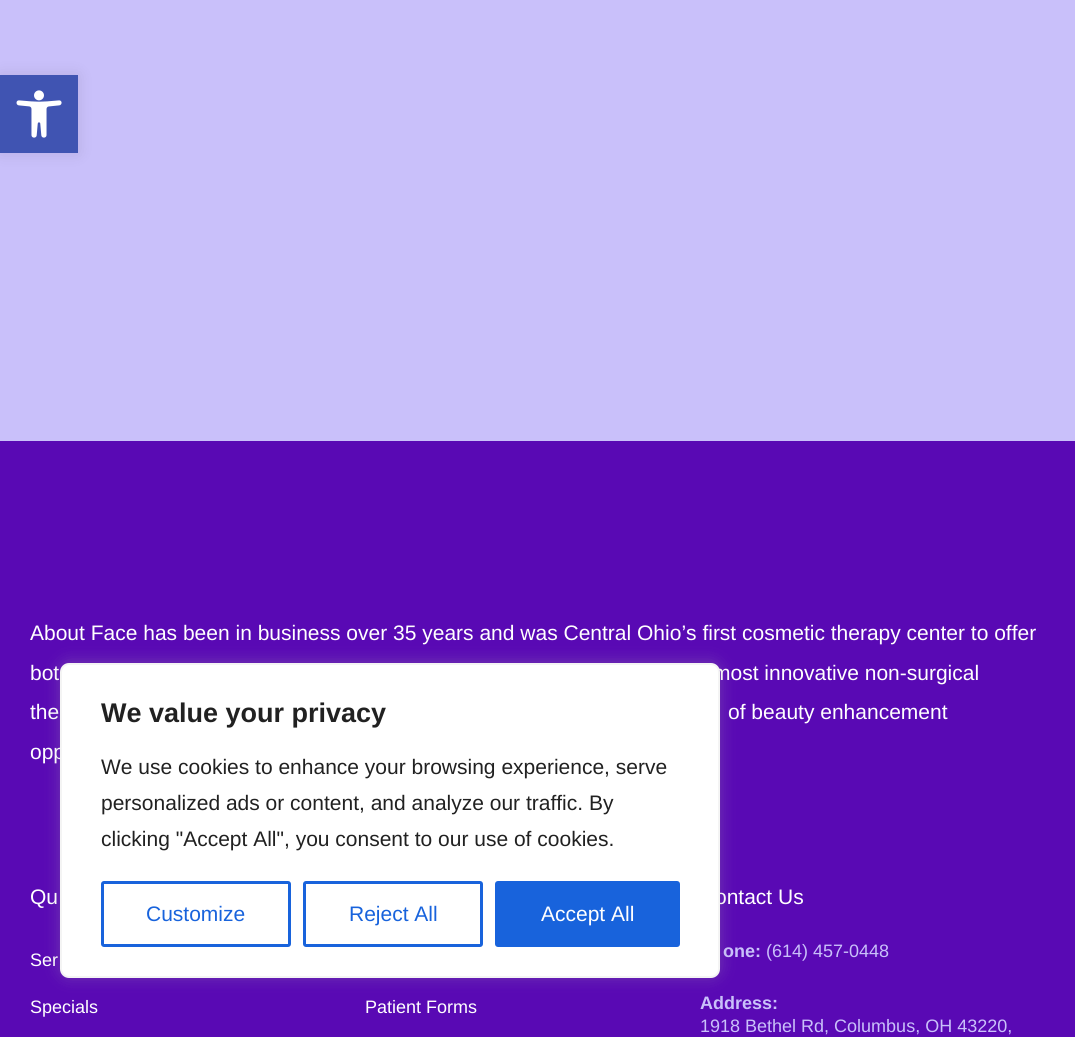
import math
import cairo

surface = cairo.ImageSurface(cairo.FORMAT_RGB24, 1075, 1037)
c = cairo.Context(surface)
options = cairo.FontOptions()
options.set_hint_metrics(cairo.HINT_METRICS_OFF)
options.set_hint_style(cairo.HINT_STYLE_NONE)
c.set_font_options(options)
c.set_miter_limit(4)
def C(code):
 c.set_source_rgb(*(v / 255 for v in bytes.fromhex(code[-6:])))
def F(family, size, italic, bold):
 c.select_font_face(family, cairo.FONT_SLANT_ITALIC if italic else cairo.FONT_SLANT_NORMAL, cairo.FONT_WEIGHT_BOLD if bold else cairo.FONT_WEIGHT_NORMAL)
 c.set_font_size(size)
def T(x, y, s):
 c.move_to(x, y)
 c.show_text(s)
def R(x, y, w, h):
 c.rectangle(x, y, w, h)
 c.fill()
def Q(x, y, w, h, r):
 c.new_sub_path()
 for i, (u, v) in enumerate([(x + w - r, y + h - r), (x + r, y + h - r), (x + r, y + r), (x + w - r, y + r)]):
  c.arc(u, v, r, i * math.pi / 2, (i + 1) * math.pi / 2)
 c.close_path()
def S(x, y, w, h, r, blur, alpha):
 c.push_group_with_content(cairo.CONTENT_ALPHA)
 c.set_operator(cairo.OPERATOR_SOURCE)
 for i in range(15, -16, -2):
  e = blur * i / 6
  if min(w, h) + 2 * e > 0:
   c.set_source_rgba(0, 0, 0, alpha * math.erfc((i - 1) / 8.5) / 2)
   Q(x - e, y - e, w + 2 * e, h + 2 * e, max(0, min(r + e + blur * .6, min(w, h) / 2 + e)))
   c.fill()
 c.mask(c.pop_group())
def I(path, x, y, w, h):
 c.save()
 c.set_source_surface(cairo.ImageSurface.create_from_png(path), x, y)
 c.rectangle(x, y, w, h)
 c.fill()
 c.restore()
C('c9c0fa')
c.paint()
C('000000')
S(0,75,78,78,0,7.5,.1)
C('4054b2')
R(0,75,78,78)
I('1.png',16,90,46,48)
C('5909b4')
R(0,441,1075,596)
F('Liberation Sans',21,0,0)
C('ffffff')
T(30,640,'About Face has been in business over 35 years and was Central Ohio’s first cosmetic therapy center to offer')
T(30,680,'bot')
T(713,680,'most innovative non-surgical')
T(30,719,'the')
T(728,719,'of beauty enhancement')
T(30,759,'opp')
T(30,904,'Qu')
F('Liberation Sans',18,0,0)
T(30,966,'Ser')
T(30,1013,'Specials')
T(365,1013,'Patient Forms')
F('Liberation Sans',21,0,0)
T(715,904,'ontact Us')
F('Liberation Sans',18,0,1)
C('c9c0fa')
T(723,957,'one:')
F('Liberation Sans',18,0,0)
T(766,957,'(614) 457-0448')
F('Liberation Sans',18,0,1)
T(700,1009,'Address:')
F('Liberation Sans',18,0,0)
T(700,1032,'1918 Bethel Rd, Columbus, OH 43220,')
C('acabab')
S(60,662,660,315,9,7.5,.3)
C('ffffff')
Q(61,664,658,313,8)
c.fill_preserve()
C('f4f4f4')
c.stroke()
F('Liberation Sans',27,0,1)
C('212121')
T(101,722,'We value your privacy')
F('Liberation Sans',21,0,0)
T(101,774,'We use cookies to enhance your browsing experience, serve')
T(101,810,'personalized ads or content, and analyze our traffic. By')
T(101,846,'clicking "Accept All", you consent to our use of cookies.')
Q(102.5,882.5,187,63,1.5)
C('1863dc')
c.set_line_width(3)
c.stroke()
T(146,921,'Customize')
Q(304.5,882.5,177,63,1.5)
c.stroke()
T(349,921,'Reject All')
Q(496.5,882.5,182,63,1.5)
c.fill_preserve()
c.stroke()
C('ffffff')
T(541,921,'Accept All')
surface.write_to_png('o.png')
